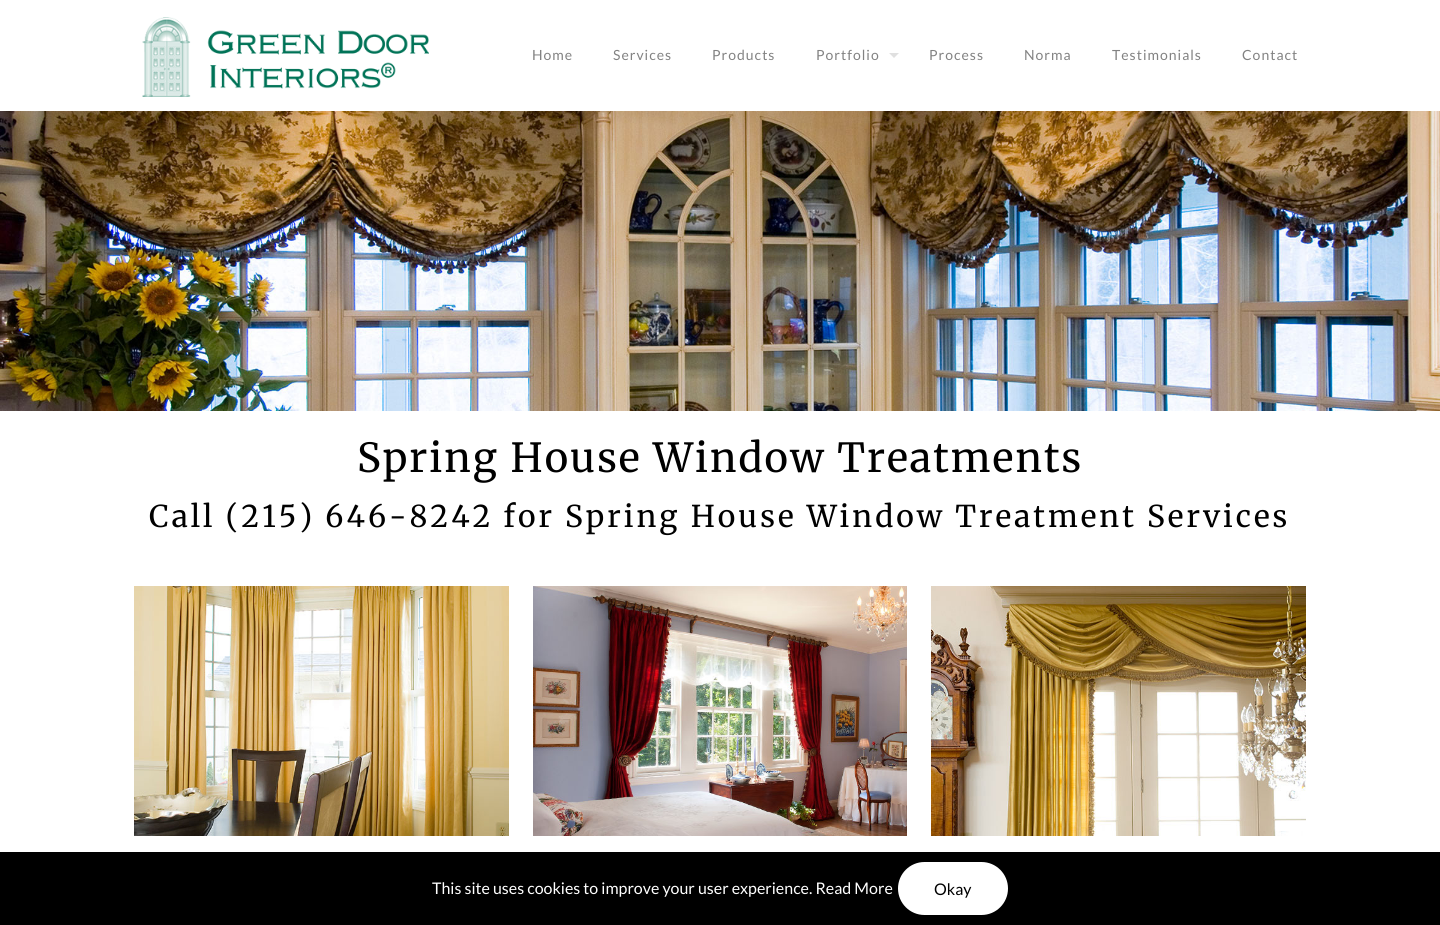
import math
import cairo

surface = cairo.ImageSurface(cairo.FORMAT_RGB24, 1440, 925)
c = cairo.Context(surface)
options = cairo.FontOptions()
options.set_hint_metrics(cairo.HINT_METRICS_OFF)
options.set_hint_style(cairo.HINT_STYLE_NONE)
c.set_font_options(options)
c.set_miter_limit(4)
def C(code):
 c.set_source_rgb(*(v / 255 for v in bytes.fromhex(code[-6:])))
def F(family, size, italic, bold):
 c.select_font_face(family, cairo.FONT_SLANT_ITALIC if italic else cairo.FONT_SLANT_NORMAL, cairo.FONT_WEIGHT_BOLD if bold else cairo.FONT_WEIGHT_NORMAL)
 c.set_font_size(size)
def T(x, y, s):
 c.move_to(x, y)
 c.show_text(s)
def L(x, y, s, letter, word):
 c.move_to(x, y)
 for ch in s:
  c.show_text(ch)
  c.rel_move_to(letter + word * (ch == ' '), 0)
def R(x, y, w, h):
 c.rectangle(x, y, w, h)
 c.fill()
def Q(x, y, w, h, r):
 c.new_sub_path()
 for i, (u, v) in enumerate([(x + w - r, y + h - r), (x + r, y + h - r), (x + r, y + r), (x + w - r, y + r)]):
  c.arc(u, v, r, i * math.pi / 2, (i + 1) * math.pi / 2)
 c.close_path()
def I(path, x, y, w, h):
 c.save()
 c.set_source_surface(cairo.ImageSurface.create_from_png(path), x, y)
 c.rectangle(x, y, w, h)
 c.fill()
 c.restore()
C('ffffff')
c.paint()
I('1.png',142,17,287,80)
F('Lato',14,0,0)
C('828282')
L(532,60,'Home',1,0)
L(613,60,'Services',1,0)
L(712,60,'Products',1,0)
L(816,60,'Portfolio',1,0)
C('e0e0e0')
c.new_path()
c.move_to(889,53)
c.line_to(899,53)
c.line_to(894,58)
c.close_path()
c.fill()
C('828282')
L(929,60,'Process',1,0)
L(1024,60,'Norma',1,0)
L(1112,60,'Testimonials',1,0)
L(1242,60,'Contact',1,0)
I('2.png',0,111,1440,300)
F('Merriweather',40,0,0)
C('000000')
L(357,472,'Spring House Window Treatments',2,0)
F('Merriweather',30,0,0)
L(149,527,'Call (215) 646-8242 for Spring House Window Treatment Services',3,0)
I('3.png',134,586,375,250)
I('4.png',533,586,374,250)
I('5.png',931,586,375,250)
R(0,852,1440,73)
F('Lato',16,0,0)
C('ffffff')
T(432,894,'This site uses cookies to improve your user experience. Read More')
Q(898,862,110,53,26.5)
c.fill()
C('000000')
T(934,895,'Okay')
surface.write_to_png('o.png')
